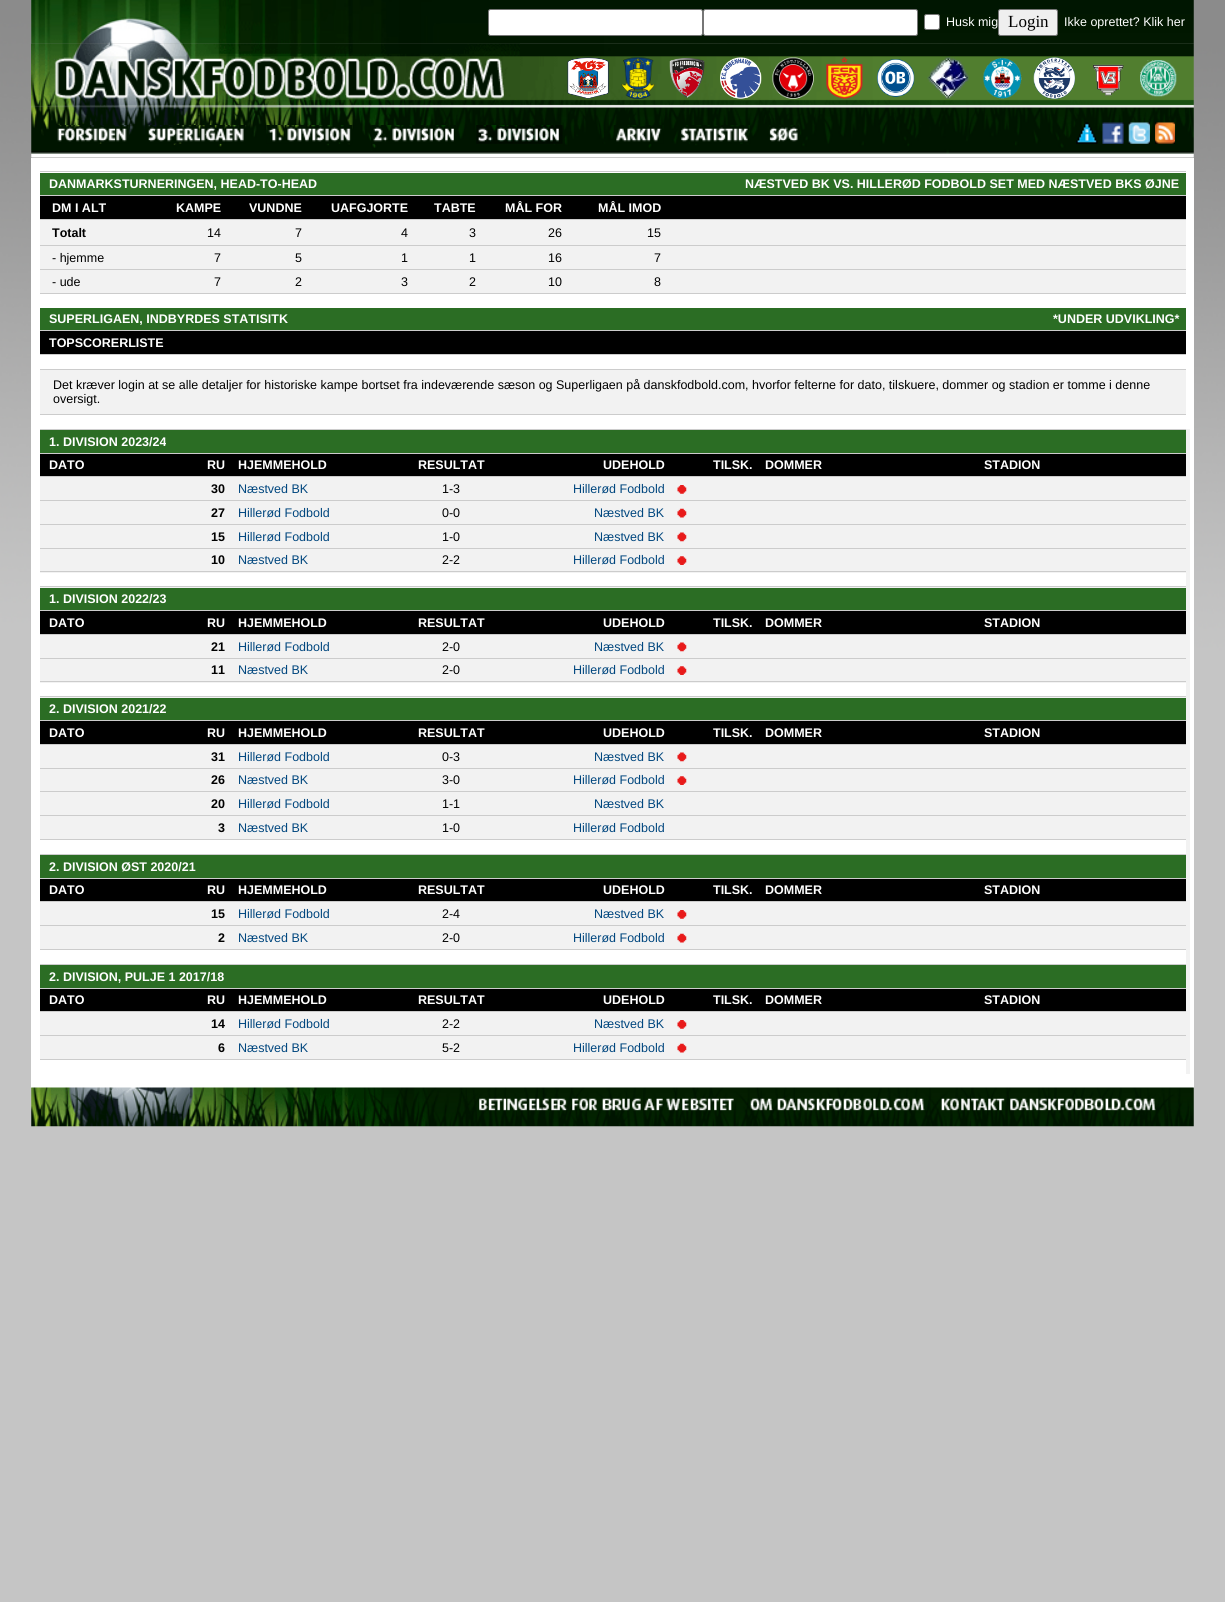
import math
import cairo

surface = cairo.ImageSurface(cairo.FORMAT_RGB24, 1225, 1602)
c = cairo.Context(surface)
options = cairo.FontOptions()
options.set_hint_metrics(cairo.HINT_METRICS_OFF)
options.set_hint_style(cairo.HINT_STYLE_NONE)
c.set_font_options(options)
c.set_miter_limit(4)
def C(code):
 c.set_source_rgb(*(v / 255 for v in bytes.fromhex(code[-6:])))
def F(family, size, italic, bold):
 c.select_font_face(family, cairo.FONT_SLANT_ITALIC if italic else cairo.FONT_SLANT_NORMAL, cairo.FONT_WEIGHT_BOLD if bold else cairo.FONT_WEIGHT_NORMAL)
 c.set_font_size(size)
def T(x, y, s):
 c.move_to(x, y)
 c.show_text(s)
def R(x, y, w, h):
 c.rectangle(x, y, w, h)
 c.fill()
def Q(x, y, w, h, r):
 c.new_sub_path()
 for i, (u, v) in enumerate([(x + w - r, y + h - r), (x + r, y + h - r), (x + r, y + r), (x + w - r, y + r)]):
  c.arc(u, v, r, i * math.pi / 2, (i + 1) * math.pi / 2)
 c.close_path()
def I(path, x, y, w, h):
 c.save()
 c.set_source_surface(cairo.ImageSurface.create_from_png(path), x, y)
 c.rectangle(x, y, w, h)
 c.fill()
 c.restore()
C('ffffff')
c.paint()
I('1.png',0,0,1225,1602)
I('2.png',31,0,1163,44)
C('ffffff')
Q(488.5,9.5,214,26,2)
c.fill_preserve()
C('767676')
c.set_line_width(1)
c.stroke()
C('ffffff')
Q(703.5,9.5,214,26,2)
c.fill_preserve()
C('767676')
c.stroke()
C('ffffff')
Q(924.5,14.5,15,15,2)
c.fill_preserve()
C('767676')
c.stroke()
F('Liberation Sans',12.5,0,0)
C('ffffff')
T(946,26,'Husk mig')
C('efefef')
Q(998.5,9.5,59,26,2)
c.fill_preserve()
C('767676')
c.stroke()
F('Liberation Serif',17,0,0)
C('000000')
T(1008,27,'Login')
F('Liberation Sans',12.5,0,0)
C('ffffff')
T(1064,26,'Ikke oprettet? Klik her')
I('3.png',31,43,1163,64)
I('17.png',31,106,1163,52)
I('4.png',31,43,489,64)
I('5.png',567,57,42,42)
I('6.png',621,57,34,42)
I('7.png',669,57,36,41)
I('8.png',720,57,42,42)
I('9.png',772,57,42,42)
I('10.png',826,57,37,42)
I('11.png',877,59,38,38)
I('12.png',927,57,42,42)
I('13.png',983,58,39,41)
I('14.png',1033,57,42,42)
I('15.png',1093,64,31,32)
I('16.png',1140,60,37,37)
I('18.png',57,125,72,19)
I('19.png',148,125,99,19)
I('20.png',266,125,87,19)
I('21.png',371,125,85,19)
I('22.png',476,125,87,19)
I('23.png',613,125,51,19)
I('24.png',681,125,69,19)
I('25.png',769,125,31,17)
I('26.png',1076,122,22,22)
I('27.png',1102,122,22,22)
I('28.png',1128,122,22,22)
I('29.png',1155,122,20,22)
R(31,158,1163,930)
C('cccccc')
R(40,171,1146,1)
C('2b6d24')
R(40,173,1146,22)
F('Liberation Sans',12.5,0,1)
C('ffffff')
T(49,188,'DANMARKSTURNERINGEN, HEAD-TO-HEAD')
T(745,188,'NÆSTVED BK VS. HILLERØD FODBOLD SET MED NÆSTVED BKS ØJNE')
C('cccccc')
R(40,195,1146,1)
C('000000')
R(40,196,1146,23)
C('ffffff')
T(52,212,'DM I ALT')
T(176,212,'KAMPE')
T(249,212,'VUNDNE')
T(331,212,'UAFGJORTE')
T(434,212,'TABTE')
T(505,212,'MÅL FOR')
T(598,212,'MÅL IMOD')
C('cccccc')
R(40,219,1146,1)
C('f2f2f2')
R(40,220,1146,25)
C('000000')
T(52,237,'Totalt')
F('Liberation Sans',12.5,0,0)
T(207,237,'14')
T(295,237,'7')
T(401,237,'4')
T(469,237,'3')
T(548,237,'26')
T(647,237,'15')
C('cccccc')
R(40,245,1146,1)
C('f2f2f2')
R(40,246,1146,23)
C('000000')
T(52,262,'- hjemme')
T(214,262,'7')
T(295,262,'5')
T(401,262,'1')
T(469,262,'1')
T(548,262,'16')
T(654,262,'7')
C('cccccc')
R(40,269,1146,1)
C('f2f2f2')
R(40,270,1146,23)
C('000000')
T(52,286,'- ude')
T(214,286,'7')
T(295,286,'2')
T(401,286,'3')
T(469,286,'2')
T(548,286,'10')
T(654,286,'8')
C('cccccc')
R(40,293,1146,1)
C('2b6d24')
R(40,308,1146,22)
F('Liberation Sans',12.5,0,1)
C('ffffff')
T(49,323,'SUPERLIGAEN, INDBYRDES STATISITK')
T(1053,323,'*UNDER UDVIKLING*')
C('cccccc')
R(40,330,1146,1)
C('000000')
R(40,331,1146,23)
C('ffffff')
T(49,347,'TOPSCORERLISTE')
C('cccccc')
R(40,354,1146,1)
R(40,369,1146,1)
C('f2f2f2')
R(40,370,1146,44)
F('Liberation Sans',12.5,0,0)
C('000000')
T(53,389,'Det kræver login at se alle detaljer for historiske kampe bortset fra indeværende sæson og Superligaen på danskfodbold.com, hvorfor felterne for dato, tilskuere, dommer og stadion er tomme i denne')
T(53,403,'oversigt.')
C('cccccc')
R(40,414,1146,1)
C('f2f2f2')
R(40,429,1150,645)
C('cccccc')
R(40,429,1146,1)
C('2b6d24')
R(40,430,1146,23)
F('Liberation Sans',12.5,0,1)
C('ffffff')
T(49,446,'1. DIVISION 2023/24')
C('cccccc')
R(40,453,1146,1)
C('000000')
R(40,454,1146,22)
C('ffffff')
T(49,469,'DATO')
T(207,469,'RU')
T(238,469,'HJEMMEHOLD')
T(418,469,'RESULTAT')
T(603,469,'UDEHOLD')
T(713,469,'TILSK.')
T(765,469,'DOMMER')
T(984,469,'STADION')
C('cccccc')
R(40,476,1146,1)
C('000000')
T(211,493,'30')
F('Liberation Sans',12.5,0,0)
C('00467e')
T(238,493,'Næstved BK')
C('000000')
T(442,493,'1-3')
C('00467e')
T(573,493,'Hillerød Fodbold')
I('30.png',677,485,10,9)
C('cccccc')
R(40,500,1146,1)
F('Liberation Sans',12.5,0,1)
C('000000')
T(211,517,'27')
F('Liberation Sans',12.5,0,0)
C('00467e')
T(238,517,'Hillerød Fodbold')
C('000000')
T(442,517,'0-0')
C('00467e')
T(594,517,'Næstved BK')
I('31.png',677,508,10,10)
C('cccccc')
R(40,524,1146,1)
F('Liberation Sans',12.5,0,1)
C('000000')
T(211,541,'15')
F('Liberation Sans',12.5,0,0)
C('00467e')
T(238,541,'Hillerød Fodbold')
C('000000')
T(442,541,'1-0')
C('00467e')
T(594,541,'Næstved BK')
I('32.png',677,532,10,10)
C('cccccc')
R(40,548,1146,1)
F('Liberation Sans',12.5,0,1)
C('000000')
T(211,564,'10')
F('Liberation Sans',12.5,0,0)
C('00467e')
T(238,564,'Næstved BK')
C('000000')
T(442,564,'2-2')
C('00467e')
T(573,564,'Hillerød Fodbold')
I('33.png',677,556,10,9)
C('cccccc')
R(40,571,1146,1)
C('ffffff')
R(40,573,1146,13)
C('cccccc')
R(40,586,1146,1)
C('2b6d24')
R(40,588,1146,22)
F('Liberation Sans',12.5,0,1)
C('ffffff')
T(49,603,'1. DIVISION 2022/23')
C('cccccc')
R(40,610,1146,1)
C('000000')
R(40,611,1146,23)
C('ffffff')
T(49,627,'DATO')
T(207,627,'RU')
T(238,627,'HJEMMEHOLD')
T(418,627,'RESULTAT')
T(603,627,'UDEHOLD')
T(713,627,'TILSK.')
T(765,627,'DOMMER')
T(984,627,'STADION')
C('cccccc')
R(40,634,1146,1)
C('000000')
T(211,651,'21')
F('Liberation Sans',12.5,0,0)
C('00467e')
T(238,651,'Hillerød Fodbold')
C('000000')
T(442,651,'2-0')
C('00467e')
T(594,651,'Næstved BK')
I('32.png',677,642,10,10)
C('cccccc')
R(40,658,1146,1)
F('Liberation Sans',12.5,0,1)
C('000000')
T(211,674,'11')
F('Liberation Sans',12.5,0,0)
C('00467e')
T(238,674,'Næstved BK')
C('000000')
T(442,674,'2-0')
C('00467e')
T(573,674,'Hillerød Fodbold')
I('33.png',677,666,10,9)
C('cccccc')
R(40,681,1146,1)
C('ffffff')
R(40,683,1146,13)
C('cccccc')
R(40,696,1146,1)
C('2b6d24')
R(40,698,1146,22)
F('Liberation Sans',12.5,0,1)
C('ffffff')
T(49,713,'2. DIVISION 2021/22')
C('cccccc')
R(40,720,1146,1)
C('000000')
R(40,721,1146,23)
C('ffffff')
T(49,737,'DATO')
T(207,737,'RU')
T(238,737,'HJEMMEHOLD')
T(418,737,'RESULTAT')
T(603,737,'UDEHOLD')
T(713,737,'TILSK.')
T(765,737,'DOMMER')
T(984,737,'STADION')
C('cccccc')
R(40,744,1146,1)
C('000000')
T(211,761,'31')
F('Liberation Sans',12.5,0,0)
C('00467e')
T(238,761,'Hillerød Fodbold')
C('000000')
T(442,761,'0-3')
C('00467e')
T(594,761,'Næstved BK')
I('32.png',677,752,10,10)
C('cccccc')
R(40,768,1146,1)
F('Liberation Sans',12.5,0,1)
C('000000')
T(211,784,'26')
F('Liberation Sans',12.5,0,0)
C('00467e')
T(238,784,'Næstved BK')
C('000000')
T(442,784,'3-0')
C('00467e')
T(573,784,'Hillerød Fodbold')
I('34.png',677,776,10,9)
C('cccccc')
R(40,791,1146,1)
F('Liberation Sans',12.5,0,1)
C('000000')
T(211,808,'20')
F('Liberation Sans',12.5,0,0)
C('00467e')
T(238,808,'Hillerød Fodbold')
C('000000')
T(442,808,'1-1')
C('00467e')
T(594,808,'Næstved BK')
C('cccccc')
R(40,815,1146,1)
F('Liberation Sans',12.5,0,1)
C('000000')
T(218,832,'3')
F('Liberation Sans',12.5,0,0)
C('00467e')
T(238,832,'Næstved BK')
C('000000')
T(442,832,'1-0')
C('00467e')
T(573,832,'Hillerød Fodbold')
C('cccccc')
R(40,839,1146,1)
C('ffffff')
R(40,840,1146,14)
C('cccccc')
R(40,854,1146,1)
C('2b6d24')
R(40,855,1146,23)
F('Liberation Sans',12.5,0,1)
C('ffffff')
T(49,871,'2. DIVISION ØST 2020/21')
C('cccccc')
R(40,878,1146,1)
C('000000')
R(40,879,1146,22)
C('ffffff')
T(49,894,'DATO')
T(207,894,'RU')
T(238,894,'HJEMMEHOLD')
T(418,894,'RESULTAT')
T(603,894,'UDEHOLD')
T(713,894,'TILSK.')
T(765,894,'DOMMER')
T(984,894,'STADION')
C('cccccc')
R(40,901,1146,1)
C('000000')
T(211,918,'15')
F('Liberation Sans',12.5,0,0)
C('00467e')
T(238,918,'Hillerød Fodbold')
C('000000')
T(442,918,'2-4')
C('00467e')
T(594,918,'Næstved BK')
I('30.png',677,910,10,9)
C('cccccc')
R(40,925,1146,1)
F('Liberation Sans',12.5,0,1)
C('000000')
T(218,942,'2')
F('Liberation Sans',12.5,0,0)
C('00467e')
T(238,942,'Næstved BK')
C('000000')
T(442,942,'2-0')
C('00467e')
T(573,942,'Hillerød Fodbold')
I('31.png',677,933,10,10)
C('cccccc')
R(40,949,1146,1)
C('ffffff')
R(40,950,1146,14)
C('cccccc')
R(40,964,1146,1)
C('2b6d24')
R(40,965,1146,23)
F('Liberation Sans',12.5,0,1)
C('ffffff')
T(49,981,'2. DIVISION, PULJE 1 2017/18')
C('cccccc')
R(40,988,1146,1)
C('000000')
R(40,989,1146,22)
C('ffffff')
T(49,1004,'DATO')
T(207,1004,'RU')
T(238,1004,'HJEMMEHOLD')
T(418,1004,'RESULTAT')
T(603,1004,'UDEHOLD')
T(713,1004,'TILSK.')
T(765,1004,'DOMMER')
T(984,1004,'STADION')
C('cccccc')
R(40,1011,1146,1)
C('000000')
T(211,1028,'14')
F('Liberation Sans',12.5,0,0)
C('00467e')
T(238,1028,'Hillerød Fodbold')
C('000000')
T(442,1028,'2-2')
C('00467e')
T(594,1028,'Næstved BK')
I('30.png',677,1020,10,9)
C('cccccc')
R(40,1035,1146,1)
F('Liberation Sans',12.5,0,1)
C('000000')
T(218,1052,'6')
F('Liberation Sans',12.5,0,0)
C('00467e')
T(238,1052,'Næstved BK')
C('000000')
T(442,1052,'5-2')
C('00467e')
T(573,1052,'Hillerød Fodbold')
I('31.png',677,1043,10,10)
C('cccccc')
R(40,1059,1146,1)
C('ffffff')
R(40,1060,1146,14)
I('35.png',31,1087,1163,40)
surface.write_to_png('o.png')
